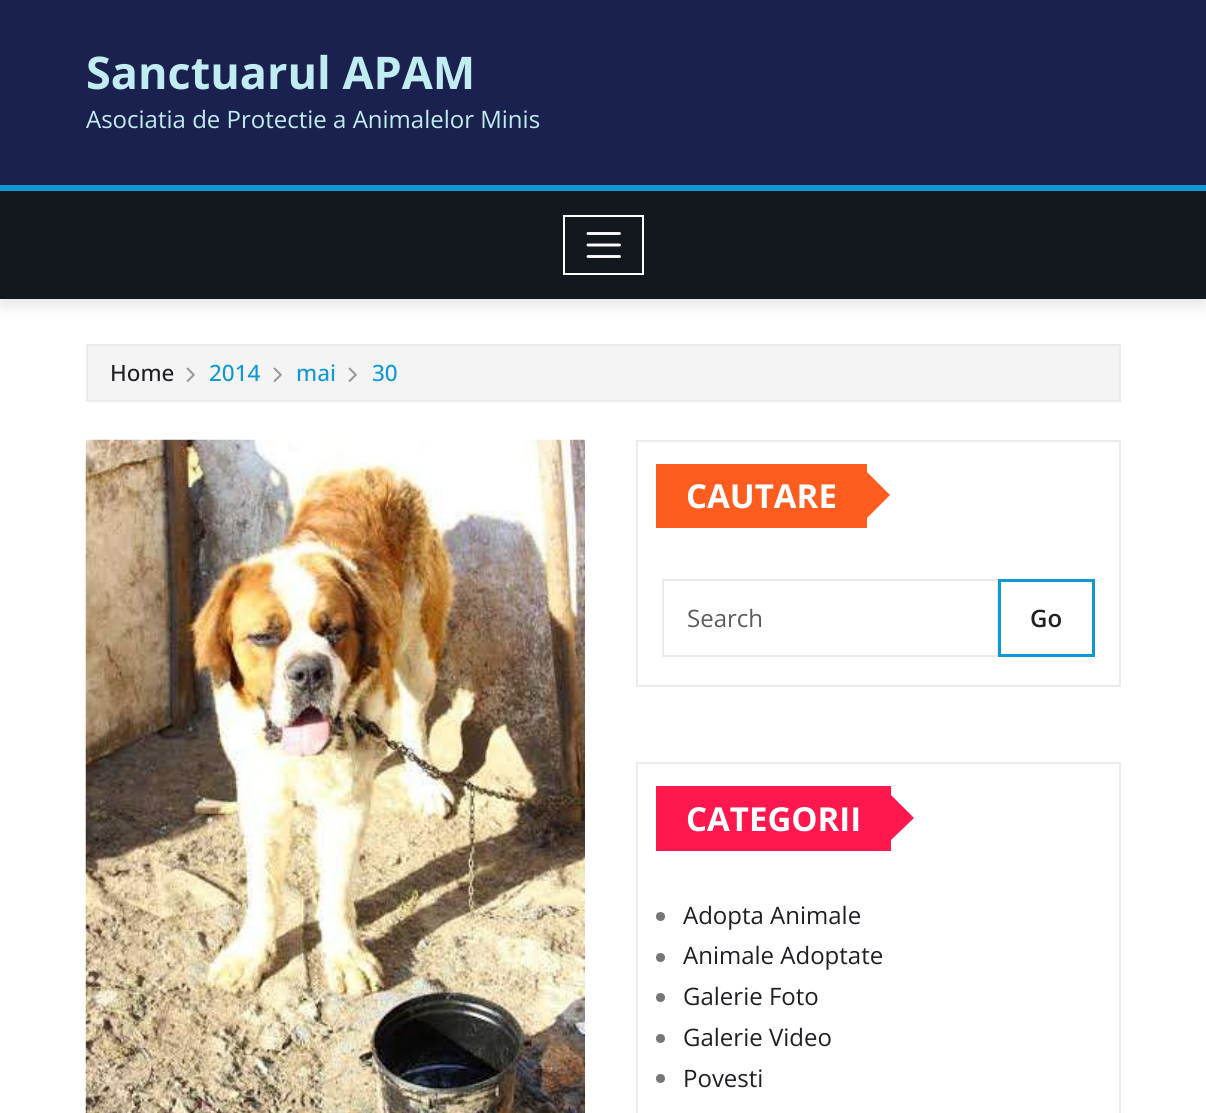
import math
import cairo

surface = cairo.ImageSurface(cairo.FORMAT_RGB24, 1206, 1113)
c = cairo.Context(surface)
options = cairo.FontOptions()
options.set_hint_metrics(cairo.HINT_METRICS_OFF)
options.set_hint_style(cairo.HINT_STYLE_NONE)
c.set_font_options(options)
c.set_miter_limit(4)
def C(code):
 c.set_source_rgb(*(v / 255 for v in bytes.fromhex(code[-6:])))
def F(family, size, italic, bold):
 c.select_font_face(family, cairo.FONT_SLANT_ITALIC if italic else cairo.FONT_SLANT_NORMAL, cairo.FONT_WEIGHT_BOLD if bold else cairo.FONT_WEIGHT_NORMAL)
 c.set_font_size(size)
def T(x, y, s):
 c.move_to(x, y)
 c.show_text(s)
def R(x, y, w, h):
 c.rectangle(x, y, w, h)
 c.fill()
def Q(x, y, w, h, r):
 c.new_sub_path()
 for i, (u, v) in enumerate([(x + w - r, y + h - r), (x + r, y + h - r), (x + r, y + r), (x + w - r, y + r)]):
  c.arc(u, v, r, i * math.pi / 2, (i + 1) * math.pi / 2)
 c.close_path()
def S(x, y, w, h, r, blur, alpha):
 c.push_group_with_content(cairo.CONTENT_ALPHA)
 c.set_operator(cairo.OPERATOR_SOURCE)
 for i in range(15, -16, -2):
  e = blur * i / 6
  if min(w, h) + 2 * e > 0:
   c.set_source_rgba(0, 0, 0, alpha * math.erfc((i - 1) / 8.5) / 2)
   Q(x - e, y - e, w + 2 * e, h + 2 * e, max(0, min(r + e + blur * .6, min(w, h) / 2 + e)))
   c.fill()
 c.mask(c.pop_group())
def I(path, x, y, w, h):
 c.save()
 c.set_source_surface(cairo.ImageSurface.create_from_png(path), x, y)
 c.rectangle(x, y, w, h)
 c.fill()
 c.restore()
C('ffffff')
c.paint()
C('1a214e')
R(0,0,1206,185)
F('Open Sans',45,0,1)
C('c1ecf2')
T(86,89,'Sanctuarul APAM')
F('Open Sans',24,0,0)
T(86,128,'Asociatia de Protectie a Animalelor Minis')
C('000000')
S(0,192,1206,114,0,7.5,.1)
C('13171e')
R(0,191,1206,108)
C('0e98d6')
R(0,185,1206,6)
c.rectangle(564,216,79,58)
C('ffffff')
c.stroke()
c.new_path()
c.move_to(588,233.5)
c.line_to(619.5,233.5)
c.move_to(588,245)
c.line_to(619.5,245)
c.move_to(588,256.5)
c.line_to(619.5,256.5)
c.set_line_width(2.9)
c.set_line_cap(cairo.LINE_CAP_ROUND)
c.stroke()
C('f4f4f5')
c.rectangle(87,345,1033,56)
c.fill_preserve()
C('ebebeb')
c.set_line_width(2)
c.set_line_cap(cairo.LINE_CAP_BUTT)
c.stroke()
F('Open Sans Medium',22.5,0,0)
C('1f2024')
T(110,381,'Home')
I('1.png',186,367,9,15)
C('0e98d6')
T(209,381,'2014')
I('1.png',273,367,9,15)
T(296,381,'mai')
I('1.png',348,367,9,15)
T(372,381,'30')
I('2.png',85,439,500,674)
c.rectangle(637,441,483,245)
C('ebebeb')
c.stroke()
C('ff5d20')
R(656,464,211,64)
F('Open Sans',33,0,1)
C('ffffff')
T(686,508,'CAUTARE')
C('ff5d20')
c.new_path()
c.move_to(867,518)
c.line_to(867,472)
c.line_to(890,495)
c.close_path()
c.fill()
c.rectangle(663,580,335,76)
C('ebebeb')
c.stroke()
F('Open Sans',24,0,0)
C('595c5f')
T(687,627,'Search')
c.rectangle(999.5,580.5,94,75)
C('0e98d6')
c.set_line_width(3)
c.stroke()
F('Open Sans SemiBold',24,0,0)
C('1f2024')
T(1030,627,'Go')
c.rectangle(637,763,483,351)
C('ebebeb')
c.set_line_width(2)
c.stroke()
C('ff184e')
R(656,786,235,65)
F('Open Sans',33,0,1)
C('ffffff')
T(686,831,'CATEGORII')
C('ff184e')
c.new_path()
c.move_to(891,840)
c.line_to(891,795)
c.line_to(914,818)
c.close_path()
c.fill()
C('767676')
c.arc(660.5,916.5,4.5,0,2 * math.pi)
c.fill()
F('Open Sans',24,0,0)
C('1f2024')
T(683,924,'Adopta Animale')
C('767676')
c.new_path()
c.arc(660.5,957.5,4.5,0,2 * math.pi)
c.fill()
C('1f2024')
T(683,964,'Animale Adoptate')
C('767676')
c.new_path()
c.arc(660.5,997.5,4.5,0,2 * math.pi)
c.fill()
C('1f2024')
T(683,1005,'Galerie Foto')
C('767676')
c.new_path()
c.arc(660.5,1038.5,4.5,0,2 * math.pi)
c.fill()
C('1f2024')
T(683,1046,'Galerie Video')
C('767676')
c.new_path()
c.arc(660.5,1078.5,4.5,0,2 * math.pi)
c.fill()
C('1f2024')
T(683,1087,'Povesti')
surface.write_to_png('o.png')
